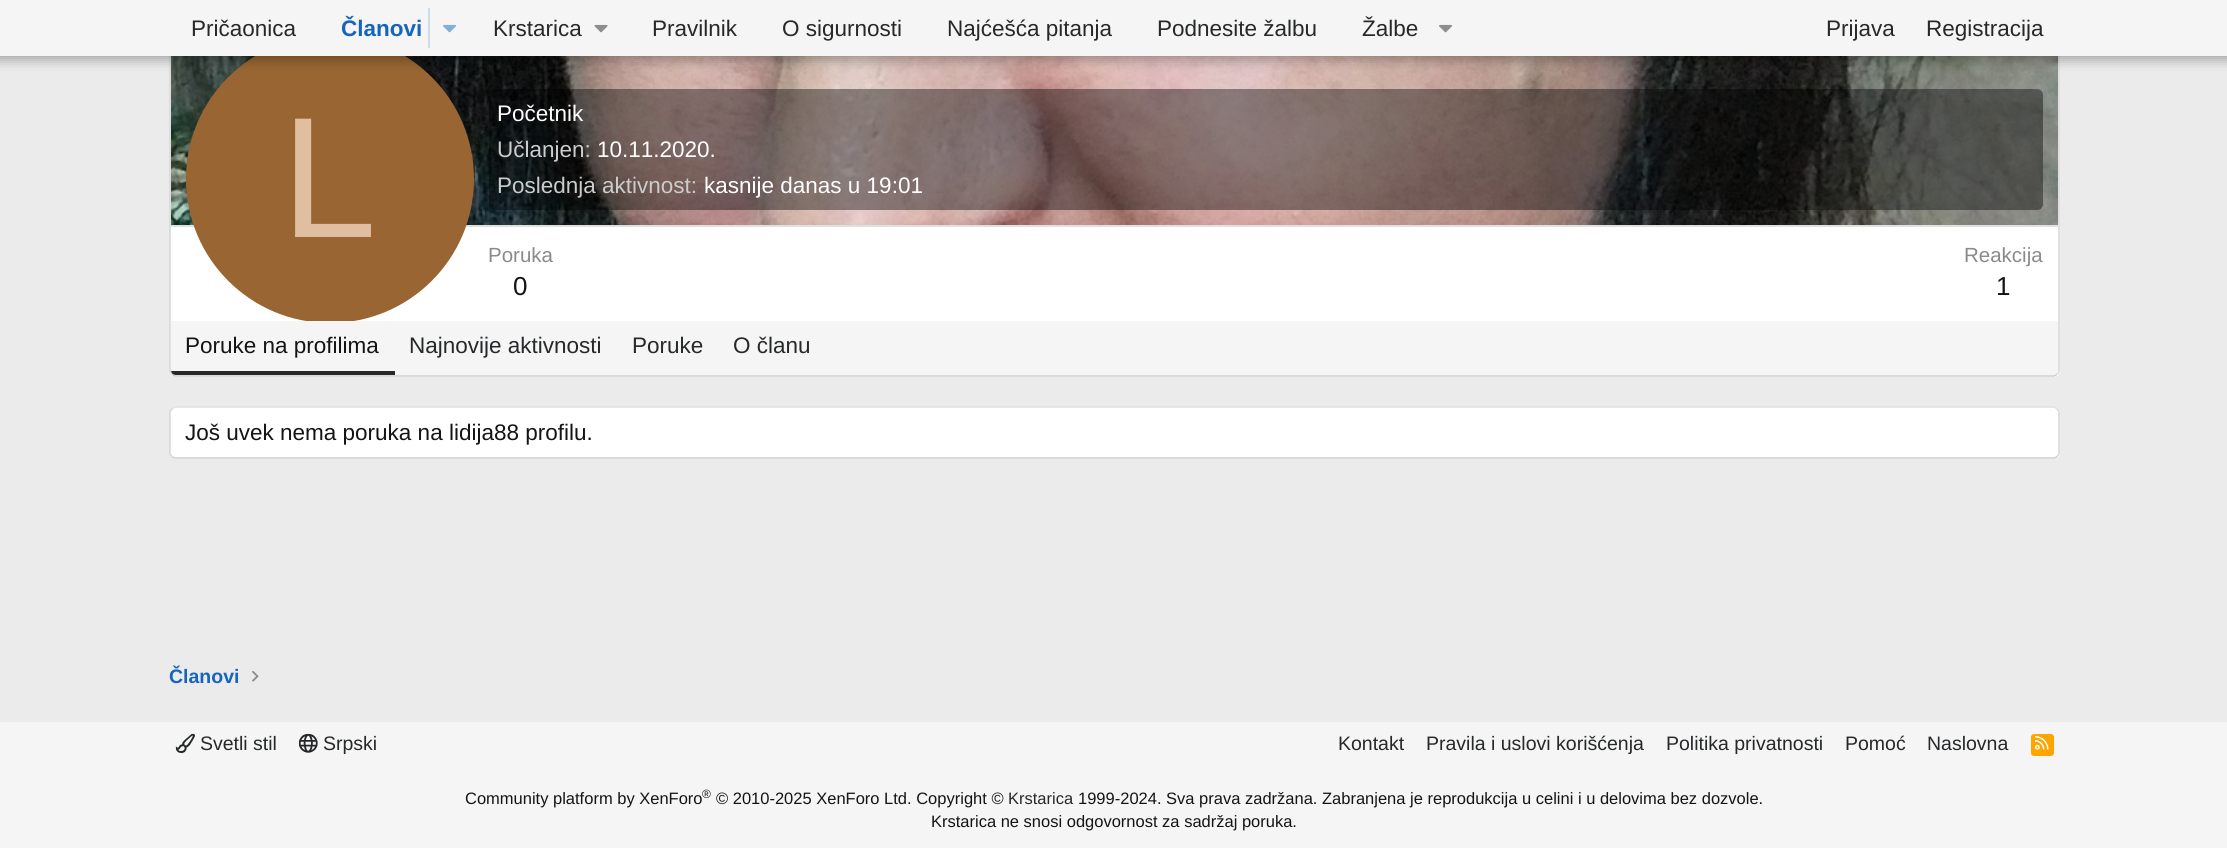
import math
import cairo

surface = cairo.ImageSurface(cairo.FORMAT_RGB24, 2227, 848)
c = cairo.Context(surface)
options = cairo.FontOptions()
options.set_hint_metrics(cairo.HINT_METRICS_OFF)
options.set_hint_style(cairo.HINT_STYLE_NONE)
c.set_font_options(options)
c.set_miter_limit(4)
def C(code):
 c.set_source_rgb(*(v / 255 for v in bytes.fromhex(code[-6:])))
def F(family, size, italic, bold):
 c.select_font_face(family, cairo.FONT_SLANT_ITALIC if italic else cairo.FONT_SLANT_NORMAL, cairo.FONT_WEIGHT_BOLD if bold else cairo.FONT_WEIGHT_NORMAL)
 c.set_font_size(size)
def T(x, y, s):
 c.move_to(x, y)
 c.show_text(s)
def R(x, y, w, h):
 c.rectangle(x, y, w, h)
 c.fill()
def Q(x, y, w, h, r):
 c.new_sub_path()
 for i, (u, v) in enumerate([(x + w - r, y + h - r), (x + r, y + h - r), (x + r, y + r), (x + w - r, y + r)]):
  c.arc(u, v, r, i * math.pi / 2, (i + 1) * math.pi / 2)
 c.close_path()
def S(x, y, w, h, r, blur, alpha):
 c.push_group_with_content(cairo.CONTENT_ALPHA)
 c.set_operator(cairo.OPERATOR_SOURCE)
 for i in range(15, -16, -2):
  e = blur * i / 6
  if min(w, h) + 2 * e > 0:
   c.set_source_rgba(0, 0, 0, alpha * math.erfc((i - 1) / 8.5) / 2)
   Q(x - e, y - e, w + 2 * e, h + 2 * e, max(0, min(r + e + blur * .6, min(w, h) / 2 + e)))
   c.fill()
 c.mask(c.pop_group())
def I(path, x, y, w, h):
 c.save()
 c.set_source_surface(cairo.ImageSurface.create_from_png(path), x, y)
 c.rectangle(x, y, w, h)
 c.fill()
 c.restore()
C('ebebeb')
c.paint()
C('ffffff')
Q(170,-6,1890,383,6)
c.fill()
c.new_path()
c.move_to(2057,-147.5)
c.curve_to(2058,-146.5,2059,-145.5,2059,-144)
c.line_to(2059,370.5)
c.curve_to(2059,372,2058,373,2057,374)
C('d6d6d6')
c.set_line_width(1.5)
c.stroke()
c.new_path()
c.move_to(2057,374)
c.curve_to(2056,375,2055,376,2053.5,376)
c.line_to(175.5,376)
c.curve_to(174,376,173,375,172,374)
C('cccccc')
c.stroke()
c.new_path()
c.move_to(172,374)
c.curve_to(171,373,170,372,170,370.5)
c.line_to(170,-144)
c.curve_to(170,-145.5,171,-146.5,172,-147.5)
C('d6d6d6')
c.stroke()
I('4.png',171,56,1887,169)
C('e0e0e0')
R(171,225,1887,2)
C('996633')
c.arc(330,179,144,0,2 * math.pi)
c.fill()
C('000000')
S(-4,-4,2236,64,0,6,.3)
C('f5f5f5')
R(0,0,2227,56)
F('Liberation Sans',22.5,0,0)
C('26282a')
T(191,36,'Pričaonica')
F('Liberation Sans',22.5,0,1)
C('1565c0')
T(341,36,'Članovi')
C('cedcec')
R(428,8,2,40)
I('1.png',443,24,13,9)
F('Liberation Sans',22.5,0,0)
C('26282a')
T(493,36,'Krstarica')
I('2.png',594,24,14,9)
T(652,36,'Pravilnik')
T(782,36,'O sigurnosti')
T(947,36,'Najćešća pitanja')
T(1157,36,'Podnesite žalbu')
T(1362,36,'Žalbe')
I('3.png',1439,24,13,9)
T(1826,36,'Prijava')
T(1926,36,'Registracija')
F('Liberation Sans',172,0,0)
C('dfbf9f')
T(281,237,'L')
c.set_source_rgba(0,0,0,0.4)
Q(489,89,1554,121,6)
c.fill()
F('Liberation Sans',22.5,0,0)
C('ffffff')
T(497,121,'Početnik')
C('cccccc')
T(497,157,'Učlanjen:')
C('ffffff')
T(597,157,'10.11.2020.')
C('cccccc')
T(497,193,'Poslednja aktivnost:')
C('ffffff')
T(704,193,'kasnije danas u 19:01')
F('Liberation Sans',20.5,0,0)
C('8a8a8a')
T(488,262,'Poruka')
F('Liberation Sans',26,0,0)
C('141414')
T(513,295,'0')
F('Liberation Sans',20.5,0,0)
C('8a8a8a')
T(1964,262,'Reakcija')
F('Liberation Sans',26,0,0)
C('141414')
T(1996,295,'1')
C('f5f5f5')
c.new_path()
c.move_to(171,321)
c.line_to(2058,321)
c.line_to(2058,370)
c.curve_to(2058,373,2056,375,2053,375)
c.line_to(176,375)
c.curve_to(173,375,171,373,171,370)
c.close_path()
c.fill()
c.save()
c.new_path()
c.move_to(171,321)
c.line_to(2058,321)
c.line_to(2058,370)
c.curve_to(2058,373,2056,375,2053,375)
c.line_to(176,375)
c.curve_to(173,375,171,373,171,370)
c.close_path()
c.clip()
C('26282a')
R(171,371,224,4)
c.restore()
F('Liberation Sans',22.5,0,0)
C('141414')
T(185,353,'Poruke na profilima')
C('26282a')
T(409,353,'Najnovije aktivnosti')
T(632,353,'Poruke')
T(733,353,'O članu')
C('ffffff')
Q(170,407,1890,52,6)
c.fill()
c.new_path()
c.move_to(172,409)
c.curve_to(173,408,174,407,175.5,407)
c.line_to(2053.5,407)
c.curve_to(2055,407,2056,408,2057,409)
C('e0e0e0')
c.stroke()
c.new_path()
c.move_to(2057,409)
c.curve_to(2058,410,2059,411,2059,412.5)
c.line_to(2059,453)
c.curve_to(2059,454.5,2058,455.5,2057,456.5)
C('d6d6d6')
c.stroke()
c.new_path()
c.move_to(2057,456.5)
c.curve_to(2056,457.5,2055,458,2053.5,458)
c.line_to(175.5,458)
c.curve_to(174,458,173,457.5,172,456.5)
C('cccccc')
c.stroke()
c.new_path()
c.move_to(172,456.5)
c.curve_to(171,455.5,170,454.5,170,453)
c.line_to(170,412.5)
c.curve_to(170,411,171,410,172,409)
C('d6d6d6')
c.stroke()
C('141414')
T(185,440,'Još uvek nema poruka na lidija88 profilu.')
F('Liberation Sans',19.5,0,1)
C('1565c0')
T(169,683,'Članovi')
I('5.png',252,670,7,12)
C('f5f5f5')
R(0,722,2227,126)
I('6.png',175,733,20,20)
F('Liberation Sans',19.5,0,0)
C('26282a')
T(200,750,'Svetli stil')
I('7.png',298,733,20,20)
T(323,750,'Srpski')
T(1338,750,'Kontakt')
T(1426,750,'Pravila i uslovi korišćenja')
T(1666,750,'Politika privatnosti')
T(1845,750,'Pomoć')
T(1927,750,'Naslovna')
C('ffa500')
Q(2031,734,23,22,3)
c.fill()
I('8.png',2035,736,14,14)
F('Liberation Sans',16.5,0,0)
C('141414')
T(465,804,'Community platform by XenForo')
F('Liberation Sans',12,0,0)
T(702,798,'®')
F('Liberation Sans',16.5,0,0)
T(716,804,'© 2010-2025 XenForo Ltd. Copyright ©')
C('26282a')
T(1008,804,'Krstarica')
C('141414')
T(1078,804,'1999-2024. Sva prava zadržana. Zabranjena je reprodukcija u celini i u delovima bez dozvole.')
T(931,827,'Krstarica ne snosi odgovornost za sadržaj poruka.')
surface.write_to_png('o.png')
